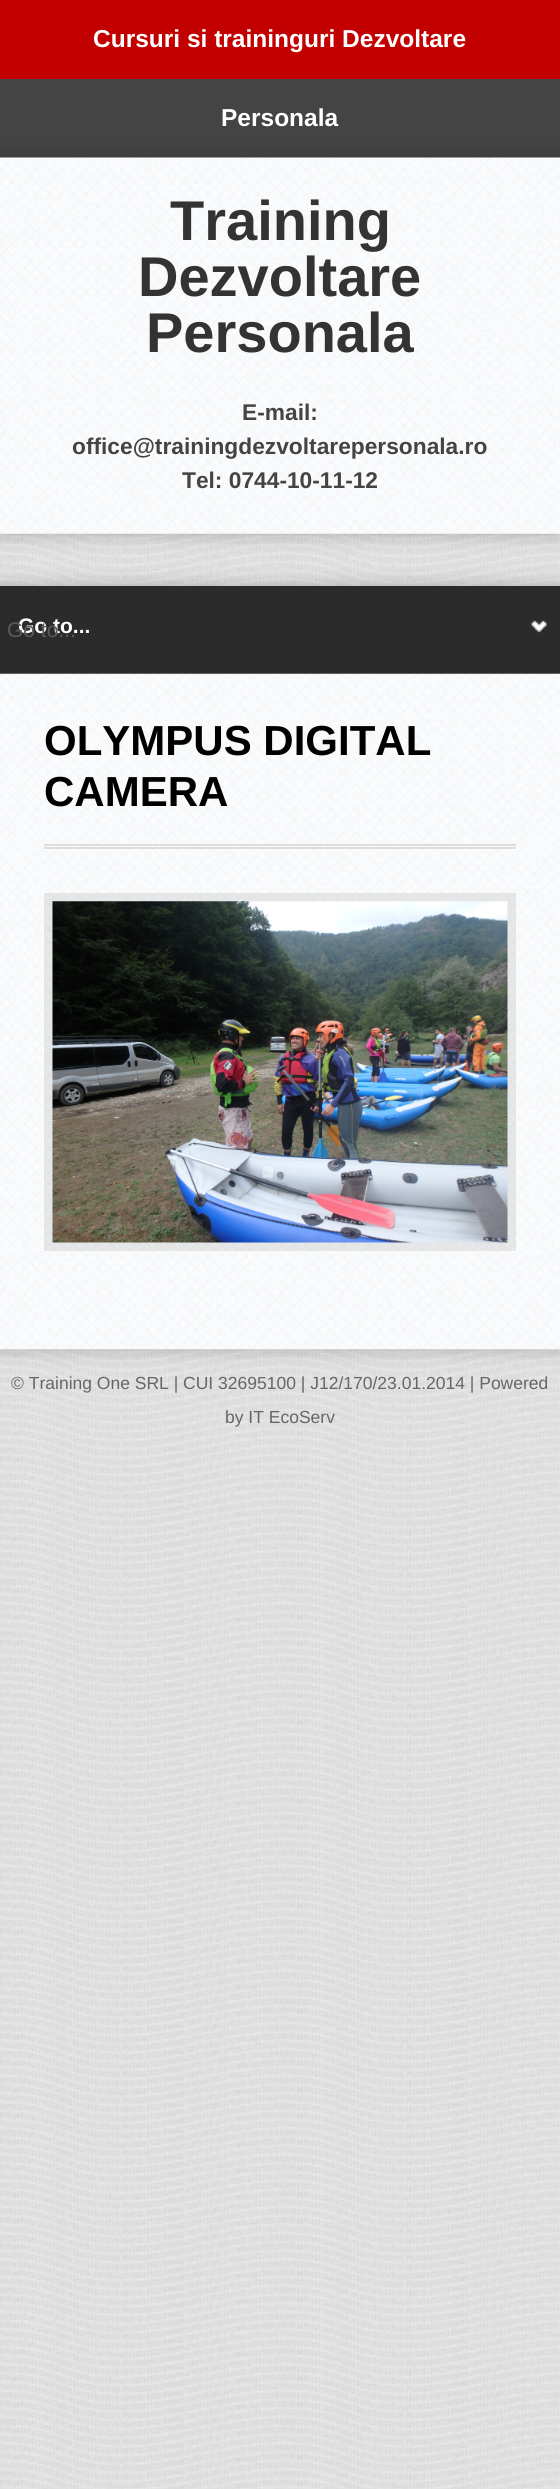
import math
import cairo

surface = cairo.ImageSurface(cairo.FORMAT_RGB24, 560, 2489)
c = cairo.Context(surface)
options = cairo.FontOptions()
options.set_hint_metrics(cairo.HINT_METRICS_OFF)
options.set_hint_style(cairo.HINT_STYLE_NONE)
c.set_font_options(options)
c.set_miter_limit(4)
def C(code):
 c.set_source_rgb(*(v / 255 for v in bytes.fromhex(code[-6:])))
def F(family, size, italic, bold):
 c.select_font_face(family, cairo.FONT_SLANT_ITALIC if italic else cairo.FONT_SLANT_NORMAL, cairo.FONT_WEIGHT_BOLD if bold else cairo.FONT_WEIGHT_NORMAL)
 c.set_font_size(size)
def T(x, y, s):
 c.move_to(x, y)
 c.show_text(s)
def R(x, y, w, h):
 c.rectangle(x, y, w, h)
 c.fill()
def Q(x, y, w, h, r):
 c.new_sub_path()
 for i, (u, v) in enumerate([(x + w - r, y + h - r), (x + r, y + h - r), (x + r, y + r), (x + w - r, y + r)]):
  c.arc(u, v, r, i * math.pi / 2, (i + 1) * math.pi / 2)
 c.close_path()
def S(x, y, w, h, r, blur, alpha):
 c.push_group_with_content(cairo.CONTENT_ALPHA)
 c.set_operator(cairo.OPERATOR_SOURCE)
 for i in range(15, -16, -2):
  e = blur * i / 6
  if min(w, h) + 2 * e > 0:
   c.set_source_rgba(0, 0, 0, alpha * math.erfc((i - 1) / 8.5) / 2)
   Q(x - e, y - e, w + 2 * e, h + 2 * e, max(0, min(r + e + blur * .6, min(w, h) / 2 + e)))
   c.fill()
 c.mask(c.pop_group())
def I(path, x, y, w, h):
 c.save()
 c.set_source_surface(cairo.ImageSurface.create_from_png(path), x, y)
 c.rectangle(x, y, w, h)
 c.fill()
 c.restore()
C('ffffff')
c.paint()
I('1.png',0,533,560,1956)
C('444444')
R(0,79,560,79)
C('c20000')
R(0,0,560,79)
F('Liberation Sans',24.5,0,1)
C('ffffff')
T(93,47,'Cursuri si traininguri Dezvoltare')
T(221,126,'Personala')
C('000000')
S(0,158,560,376,0,9,.25)
I('2.png',0,157,560,377)
F('Liberation Sans',56,0,1)
C('333333')
T(170,240,'Training')
T(138,296,'Dezvoltare')
T(146,352,'Personala')
F('Liberation Sans',22.75,0,1)
C('444444')
T(242,420,'E-mail:')
T(72,454,'office@trainingdezvoltarepersonala.ro')
T(182,488,'Tel: 0744-10-11-12')
C('000000')
S(0,586,560,763,0,9,.25)
C('2b2b2b')
R(0,586,560,88)
I('3.png',531,620,17,13)
I('4.png',531,620,17,13)
F('Liberation Sans',21,0,1)
C('ffffff')
T(18,633,'Go to...')
F('Liberation Sans',21,0,0)
C('5b5b5b')
T(7,637,'Go to...')
I('5.png',0,673,560,677)
C('dddddd')
R(44,844,472,2)
R(44,847,472,2)
F('Liberation Sans',42,0,1)
C('000000')
T(44,755,'OLYMPUS DIGITAL')
T(44,806,'CAMERA')
c.rectangle(48.5,897.5,463,349)
c.set_source_rgba(0,0,0,0.08)
c.set_line_width(9)
c.stroke()
I('6.png',52,901,456,342)
F('Liberation Sans',17.5,0,0)
C('666666')
T(11,1389,'© Training One SRL | CUI 32695100 | J12/170/23.01.2014 | Powered')
T(225,1423,'by IT EcoServ')
surface.write_to_png('o.png')
